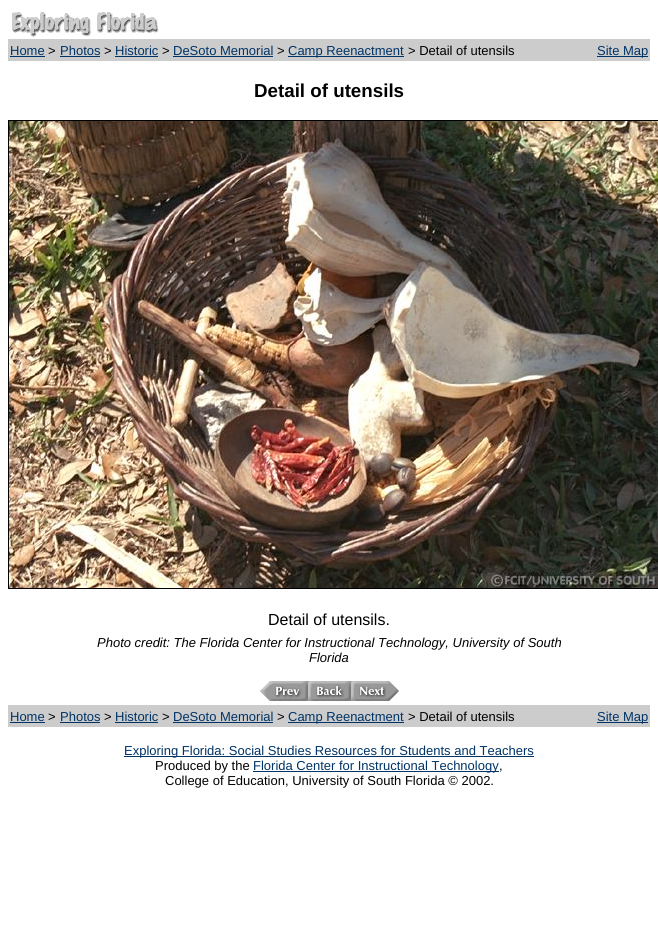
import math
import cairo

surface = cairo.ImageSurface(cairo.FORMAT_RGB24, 658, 948)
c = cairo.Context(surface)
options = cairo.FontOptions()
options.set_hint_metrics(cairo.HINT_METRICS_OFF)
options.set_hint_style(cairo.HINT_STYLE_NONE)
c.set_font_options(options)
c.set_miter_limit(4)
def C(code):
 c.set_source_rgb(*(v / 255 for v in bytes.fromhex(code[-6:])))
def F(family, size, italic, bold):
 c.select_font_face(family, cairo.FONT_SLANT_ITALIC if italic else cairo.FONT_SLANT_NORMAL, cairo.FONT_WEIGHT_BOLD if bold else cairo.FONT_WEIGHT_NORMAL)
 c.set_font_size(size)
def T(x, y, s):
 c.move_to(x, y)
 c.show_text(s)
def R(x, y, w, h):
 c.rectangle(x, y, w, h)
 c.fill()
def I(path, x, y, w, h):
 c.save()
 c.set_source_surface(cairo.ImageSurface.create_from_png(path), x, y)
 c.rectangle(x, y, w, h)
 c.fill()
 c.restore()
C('ffffff')
c.paint()
I('1.png',12,12,147,25)
C('cccccc')
R(8,39,642,22)
F('Liberation Sans',13,0,0)
C('003366')
T(10,55,'Home')
R(10,56,35,1)
C('000000')
T(48,55,'>')
C('003366')
T(60,55,'Photos')
R(60,56,40,1)
C('000000')
T(104,55,'>')
C('003366')
T(115,55,'Historic')
R(115,56,43,1)
C('000000')
T(162,55,'>')
C('003366')
T(173,55,'DeSoto Memorial')
R(173,56,100,1)
C('000000')
T(277,55,'>')
C('003366')
R(288,56,116,1)
T(288,55,'Camp Reenactment')
C('000000')
T(408,55,'> Detail of utensils')
C('003366')
R(597,56,51,1)
T(597,55,'Site Map')
F('Liberation Sans',18.75,0,1)
C('000000')
T(254,97,'Detail of utensils')
c.rectangle(8.5,120.5,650,468)
c.set_line_width(1)
c.stroke()
I('2.png',9,121,649,467)
F('Liberation Sans',16,0,0)
T(268,625,'Detail of utensils.')
F('Liberation Sans',13,1,0)
T(97,647,'Photo credit: The Florida Center for Instructional Technology, University of South')
T(309,662,'Florida')
I('3.png',260,681,48,20)
I('4.png',308,681,43,20)
I('5.png',351,681,48,20)
C('cccccc')
R(8,705,642,22)
F('Liberation Sans',13,0,0)
C('003366')
T(10,721,'Home')
R(10,722,35,1)
C('000000')
T(48,721,'>')
C('003366')
T(60,721,'Photos')
R(60,722,40,1)
C('000000')
T(104,721,'>')
C('003366')
T(115,721,'Historic')
R(115,722,43,1)
C('000000')
T(162,721,'>')
C('003366')
T(173,721,'DeSoto Memorial')
R(173,722,100,1)
C('000000')
T(277,721,'>')
C('003366')
R(288,722,116,1)
T(288,721,'Camp Reenactment')
C('000000')
T(408,721,'> Detail of utensils')
C('003366')
R(597,722,51,1)
T(597,721,'Site Map')
R(124,756,410,1)
T(124,755,'Exploring Florida: Social Studies Resources for Students and Teachers')
C('000000')
T(155,770,'Produced by the')
C('003366')
R(253,771,246,1)
T(253,770,'Florida Center for Instructional Technology')
C('000000')
T(499,770,',')
T(165,785,'College of Education, University of South Florida © 2002.')
surface.write_to_png('o.png')
